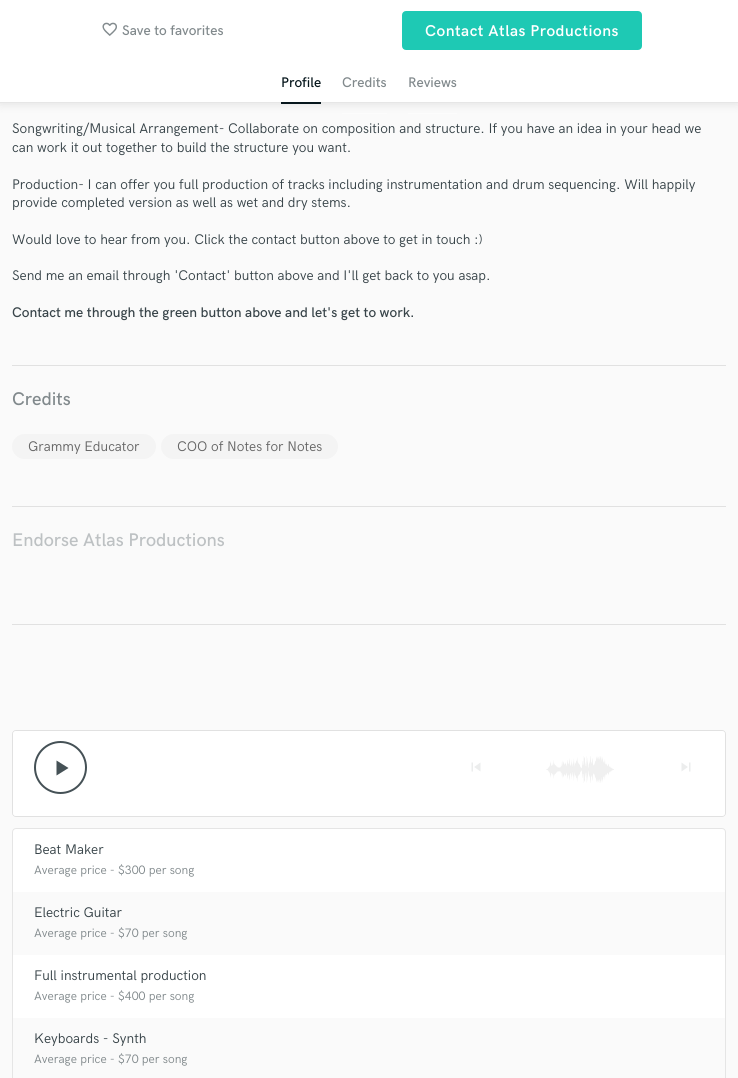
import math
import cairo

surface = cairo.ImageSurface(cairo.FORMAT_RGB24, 738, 1078)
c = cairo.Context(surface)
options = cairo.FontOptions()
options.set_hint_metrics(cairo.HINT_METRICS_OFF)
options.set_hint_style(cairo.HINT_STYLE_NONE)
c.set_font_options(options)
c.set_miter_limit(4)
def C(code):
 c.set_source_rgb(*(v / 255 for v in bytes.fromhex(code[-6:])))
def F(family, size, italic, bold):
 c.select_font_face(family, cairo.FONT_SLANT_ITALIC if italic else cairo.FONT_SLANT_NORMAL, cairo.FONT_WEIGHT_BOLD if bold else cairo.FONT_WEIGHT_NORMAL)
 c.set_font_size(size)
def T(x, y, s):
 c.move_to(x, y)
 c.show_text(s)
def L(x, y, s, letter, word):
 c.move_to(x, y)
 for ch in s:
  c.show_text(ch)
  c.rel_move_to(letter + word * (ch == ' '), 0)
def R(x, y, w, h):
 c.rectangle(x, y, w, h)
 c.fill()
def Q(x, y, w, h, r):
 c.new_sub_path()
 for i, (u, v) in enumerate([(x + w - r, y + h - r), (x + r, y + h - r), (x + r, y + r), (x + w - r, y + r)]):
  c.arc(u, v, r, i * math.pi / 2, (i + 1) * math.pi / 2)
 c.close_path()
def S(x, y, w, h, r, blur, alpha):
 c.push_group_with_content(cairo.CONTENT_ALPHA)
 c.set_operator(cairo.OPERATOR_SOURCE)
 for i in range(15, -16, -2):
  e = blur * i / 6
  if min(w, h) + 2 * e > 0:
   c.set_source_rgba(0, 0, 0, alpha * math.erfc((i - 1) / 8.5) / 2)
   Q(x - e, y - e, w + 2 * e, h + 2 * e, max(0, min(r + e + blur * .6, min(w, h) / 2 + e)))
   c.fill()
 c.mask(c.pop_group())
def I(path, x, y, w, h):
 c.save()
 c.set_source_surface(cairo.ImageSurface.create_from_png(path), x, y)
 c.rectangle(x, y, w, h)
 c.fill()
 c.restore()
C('fafafa')
c.paint()
C('000000')
S(0,1,738,103,0,5,.1)
C('ffffff')
R(0,0,738,102)
C('e6e6e6')
R(0,102,738,1)
I('1.png',102,22,15,14)
F('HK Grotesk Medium',14,0,0)
C('81898c')
T(122,35,'Save to favorites')
C('1ec9b4')
Q(403,12,238,37,3)
c.fill_preserve()
c.stroke()
F('HK Grotesk SemiBold',15.75,0,0)
C('ffffff')
L(425,36,'Contact Atlas Productions',.5,0)
F('HK Grotesk Medium',14,0,0)
C('07171d')
T(281,87,'Profile')
R(281,102,40,2)
C('81898c')
T(342,87,'Credits')
C('fcfcfc')
R(342,113,45,1)
C('81898c')
T(408,87,'Reviews')
C('fcfcfc')
R(408,113,49,1)
C('e1e1e1')
R(12,365,714,1)
F('HK Grotesk',14,0,0)
C('384449')
T(12,133,'Songwriting/Musical Arrangement- Collaborate on composition and structure. If you have an idea in your head we')
T(12,152,'can work it out together to build the structure you want.')
T(12,189,'Production- I can offer you full production of tracks including instrumentation and drum sequencing. Will happily')
T(12,207,'provide completed version as well as wet and dry stems.')
T(12,244,'Would love to hear from you. Click the contact button above to get in touch :)')
T(12,280,'Send me an email through \'Contact\' button above and I\'ll get back to you asap.')
F('HK Grotesk Medium',14,0,0)
T(12,317,'Contact me through the green button above and let\'s get to work.')
C('e1e1e1')
R(12,506,714,1)
F('HK Grotesk Medium',18.4,0,0)
C('81898c')
T(12,405,'Credits')
C('f4f4f4')
Q(12,434,144,25,12.5)
c.fill()
F('HK Grotesk',14,0,0)
C('666666')
T(28,451,'Grammy Educator')
C('f4f4f4')
Q(161,434,177,25,12.5)
c.fill()
C('666666')
T(177,451,'COO of Notes for Notes')
C('e1e1e1')
R(12,624,714,1)
F('HK Grotesk Medium',18.4,0,0)
C('bdc1c3')
T(12,546,'Endorse Atlas Productions')
Q(12.5,730.5,713,86,3.5)
C('e1e1e1')
c.set_line_width(1)
c.stroke()
C('ffffff')
Q(13,731,712,85,3)
c.fill()
c.arc(60.5,767.5,25.5,0,2 * math.pi)
C('455156')
c.set_line_width(2)
c.stroke()
c.new_path()
c.move_to(56.5,760.5)
c.line_to(68.5,768)
c.line_to(56.5,775.5)
c.close_path()
c.fill()
I('2.png',471,762,10,10)
I('3.png',546,756,68,27)
I('4.png',681,762,10,10)
C('ffffff')
Q(12.5,828.5,713,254,3.5)
c.fill_preserve()
C('e5e5e5')
c.set_line_width(1)
c.stroke()
F('HK Grotesk',14,0,0)
C('384449')
T(34,854,'Beat Maker')
F('HK Grotesk',12.25,0,0)
C('81898c')
T(34,874,'Average price - $300 per song')
C('fafafa')
R(13,892,712,63)
F('HK Grotesk',14,0,0)
C('384449')
T(34,917,'Electric Guitar')
F('HK Grotesk',12.25,0,0)
C('81898c')
T(34,937,'Average price - $70 per song')
F('HK Grotesk',14,0,0)
C('384449')
T(34,980,'Full instrumental production')
F('HK Grotesk',12.25,0,0)
C('81898c')
T(34,1000,'Average price - $400 per song')
C('fafafa')
R(13,1018,712,60)
F('HK Grotesk',14,0,0)
C('384449')
T(34,1043,'Keyboards - Synth')
F('HK Grotesk',12.25,0,0)
C('81898c')
T(34,1063,'Average price - $70 per song')
surface.write_to_png('o.png')
